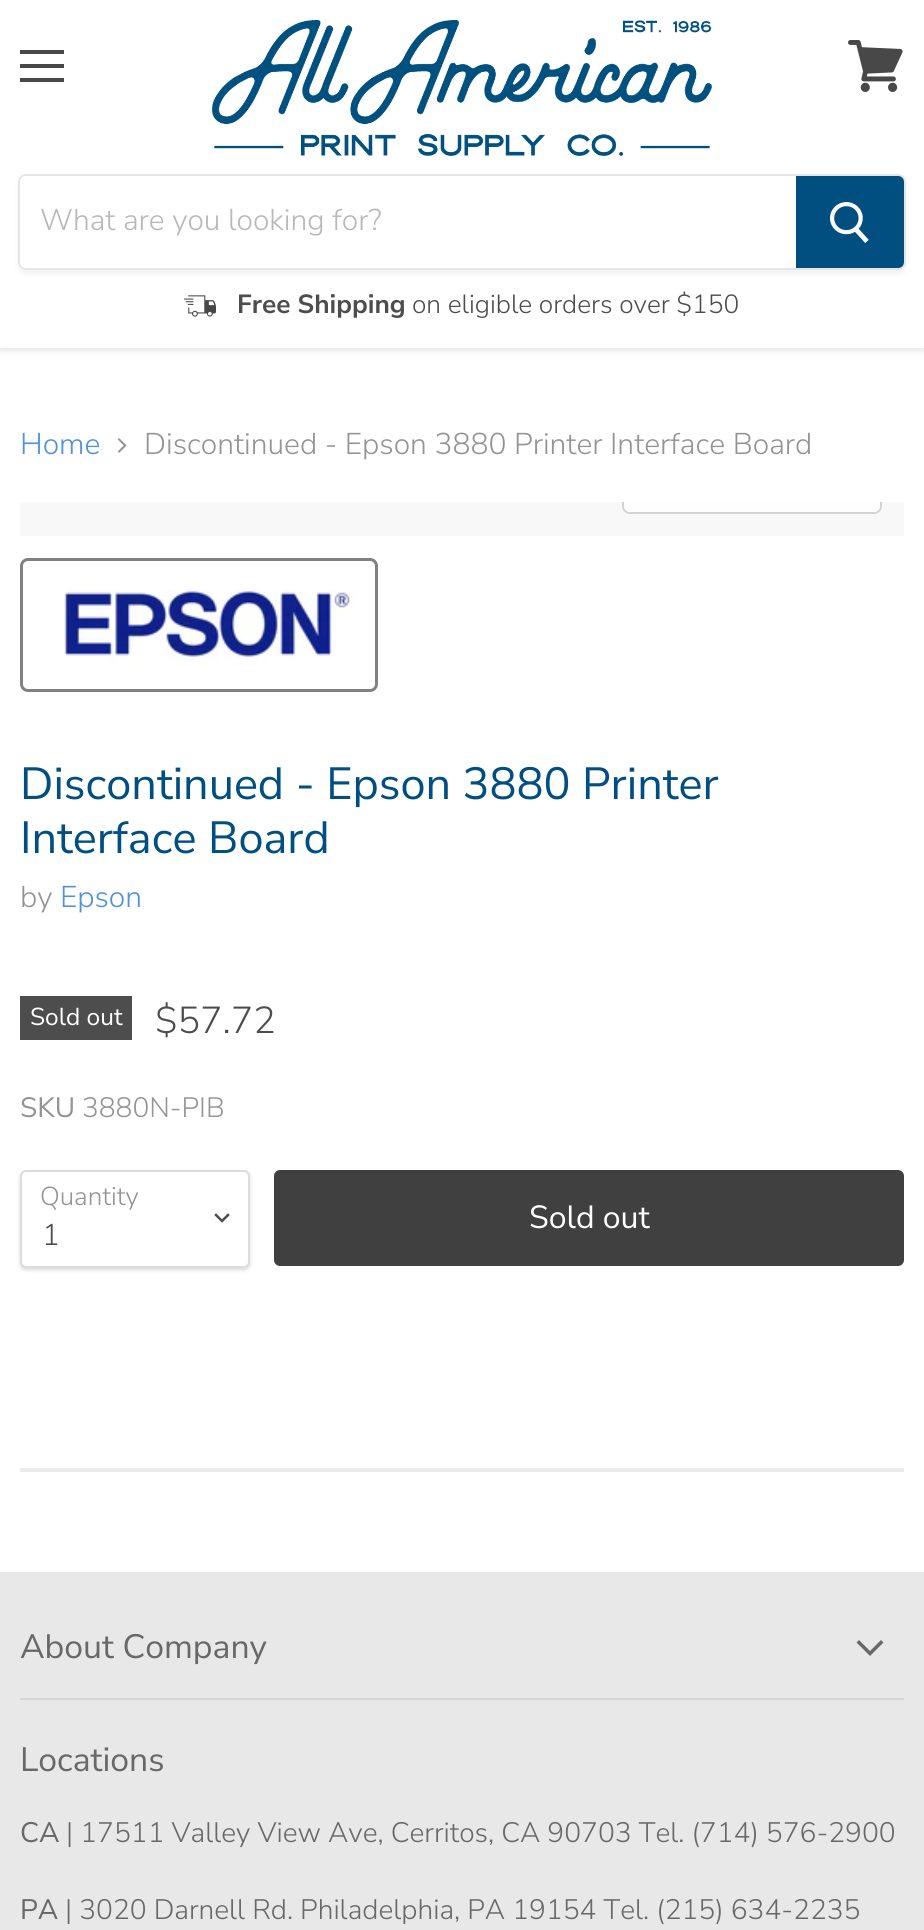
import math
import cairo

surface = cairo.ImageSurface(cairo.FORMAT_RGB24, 924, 1930)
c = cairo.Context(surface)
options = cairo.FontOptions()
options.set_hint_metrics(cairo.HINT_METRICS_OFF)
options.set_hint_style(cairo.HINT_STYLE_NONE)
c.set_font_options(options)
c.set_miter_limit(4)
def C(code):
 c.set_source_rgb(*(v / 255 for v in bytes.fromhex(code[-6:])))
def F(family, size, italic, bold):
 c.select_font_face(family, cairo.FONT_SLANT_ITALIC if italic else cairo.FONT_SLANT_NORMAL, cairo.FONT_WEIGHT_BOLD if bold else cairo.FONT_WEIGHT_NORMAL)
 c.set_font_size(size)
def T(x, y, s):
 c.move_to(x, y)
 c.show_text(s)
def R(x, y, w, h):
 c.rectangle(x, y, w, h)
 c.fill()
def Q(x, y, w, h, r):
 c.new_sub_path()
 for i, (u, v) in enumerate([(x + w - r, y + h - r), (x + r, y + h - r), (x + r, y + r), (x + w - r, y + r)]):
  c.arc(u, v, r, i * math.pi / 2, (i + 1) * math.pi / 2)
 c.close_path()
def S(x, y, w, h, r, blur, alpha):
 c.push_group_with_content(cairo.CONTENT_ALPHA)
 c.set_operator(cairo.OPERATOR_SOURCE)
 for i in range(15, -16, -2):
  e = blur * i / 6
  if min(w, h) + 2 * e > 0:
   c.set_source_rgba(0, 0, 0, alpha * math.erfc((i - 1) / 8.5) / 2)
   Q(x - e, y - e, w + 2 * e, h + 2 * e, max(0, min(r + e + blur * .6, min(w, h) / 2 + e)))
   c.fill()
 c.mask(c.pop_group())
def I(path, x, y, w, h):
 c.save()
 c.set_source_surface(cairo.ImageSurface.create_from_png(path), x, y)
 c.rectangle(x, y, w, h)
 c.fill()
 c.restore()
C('ffffff')
c.paint()
c.save()
c.rectangle(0,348,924,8)
c.clip()
C('808080')
S(0,2,924,348,0,4,.25)
c.restore()
C('484848')
R(20,50,44,4)
R(20,64,44,4)
R(20,78,44,4)
I('1.png',848,40,55,52)
I('2.png',212,20,500,136)
c.save()
c.set_fill_rule(cairo.FILL_RULE_EVEN_ODD)
c.new_path()
c.move_to(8,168)
c.line_to(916,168)
c.line_to(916,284)
c.line_to(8,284)
c.close_path()
c.move_to(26,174)
c.line_to(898,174)
c.curve_to(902.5,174,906,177.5,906,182)
c.line_to(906,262)
c.curve_to(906,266.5,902.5,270,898,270)
c.line_to(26,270)
c.curve_to(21.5,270,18,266.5,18,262)
c.line_to(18,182)
c.curve_to(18,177.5,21.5,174,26,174)
c.close_path()
c.clip()
C('808080')
S(18,178,888,96,8,3,.11)
c.restore()
Q(19,175,886,94,7)
c.set_source_rgba(0.502,0.502,0.502,0.2)
c.stroke()
C('ffffff')
c.new_path()
c.move_to(26,176)
c.line_to(796,176)
c.line_to(796,268)
c.line_to(26,268)
c.curve_to(22.5,268,20,265.5,20,262)
c.line_to(20,182)
c.curve_to(20,178.5,22.5,176,26,176)
c.close_path()
c.fill()
F('Nunito Sans Light',30,0,0)
C('b8b8b8')
T(40,230,'What are you looking for?')
C('004f80')
c.new_path()
c.move_to(797,177)
c.line_to(898,177)
c.curve_to(901,177,903,179,903,182)
c.line_to(903,262)
c.curve_to(903,265,901,267,898,267)
c.line_to(797,267)
c.close_path()
c.fill_preserve()
c.stroke()
I('3.png',830,202,39,41)
I('4.png',184,295,32,22)
F('Nunito Sans',26.25,0,1)
C('4d4d4d')
T(237,313,'Free Shipping')
F('Nunito Sans Light',26.25,0,0)
T(412,313,'on eligible orders over $150')
F('Nunito Sans Light',30,0,0)
C('5091dc')
T(20,454,'Home')
I('5.png',117,438,10,15)
C('949494')
T(144,454,'Discontinued - Epson 3880 Printer Interface Board')
C('f8f8f8')
R(20,502,884,34)
c.save()
c.rectangle(20,502,884,34)
c.clip()
Q(623,457,258,56,7)
C('d3d3d3')
c.stroke()
c.restore()
c.set_source_rgba(1,1,1,0.9)
c.new_path()
c.move_to(624,502)
c.line_to(880,502)
c.line_to(880,506)
c.curve_to(880,509.5,877.5,512,874,512)
c.line_to(630,512)
c.curve_to(626.5,512,624,509.5,624,506)
c.close_path()
c.fill()
Q(21.5,559.5,355,131,6.5)
C('818181')
c.set_line_width(3)
c.stroke()
I('6.png',64,589,295,78)
F('Nunito Sans',45,0,0)
C('004f80')
T(20,799,'Discontinued - Epson 3880 Printer')
T(20,853,'Interface Board')
F('Nunito Sans Light',30,0,0)
C('949494')
T(20,907,'by')
C('5091dc')
T(60,907,'Epson')
C('4d4d4d')
R(20,996,112,44)
F('Nunito Sans',24.5,0,0)
C('ffffff')
T(30,1025,'Sold out')
F('Nunito Sans Light',37.5,0,0)
C('4d4d4d')
T(155,1033,'$57.72')
F('Nunito Sans',28,0,0)
C('949494')
T(20,1117,'SKU')
F('Nunito Sans Light',28,0,0)
T(82,1117,'3880N-PIB')
C('000000')
S(20,1172,230,98,6,2,.15)
C('ffffff')
Q(21,1171,228,96,5)
c.fill_preserve()
C('dddddd')
c.set_line_width(2)
c.stroke()
F('Nunito Sans Light',26,0,0)
C('949494')
T(40,1205,'Quantity')
c.new_path()
c.move_to(222,1221)
c.line_to(228,1215)
c.move_to(222,1221)
c.line_to(216,1215)
C('4d4d4d')
c.set_line_width(2.5)
c.set_line_cap(cairo.LINE_CAP_SQUARE)
c.stroke()
F('Nunito Sans Light',30,0,0)
T(42,1245,'1')
C('404040')
Q(275,1171,628,94,5)
c.fill_preserve()
c.set_line_width(2)
c.set_line_cap(cairo.LINE_CAP_BUTT)
c.stroke()
F('Nunito Sans',32,0,0)
C('ffffff')
T(529,1228,'Sold out')
C('ebebeb')
R(20,1468,884,4)
C('e8e8e8')
R(0,1572,924,358)
C('d5d5d5')
R(20,1698,884,2)
F('Nunito Sans',33.75,0,0)
C('686868')
T(20,1658,'About Company')
c.new_path()
c.move_to(870,1653.5)
c.line_to(881,1642.5)
c.move_to(870,1653.5)
c.line_to(859,1642.5)
c.set_line_width(3.5)
c.set_line_cap(cairo.LINE_CAP_SQUARE)
c.stroke()
T(20,1771,'Locations')
F('Nunito Sans',28.1,0,0)
T(20,1842,'CA')
F('Nunito Sans Light',28.1,0,0)
T(66,1842,'| 17511 Valley View Ave, Cerritos, CA 90703 Tel. (714) 576-2900')
F('Nunito Sans',28.1,0,0)
T(20,1919,'PA')
F('Nunito Sans Light',28.1,0,0)
T(65,1919,'| 3020 Darnell Rd. Philadelphia, PA 19154 Tel. (215) 634-2235')
surface.write_to_png('o.png')
